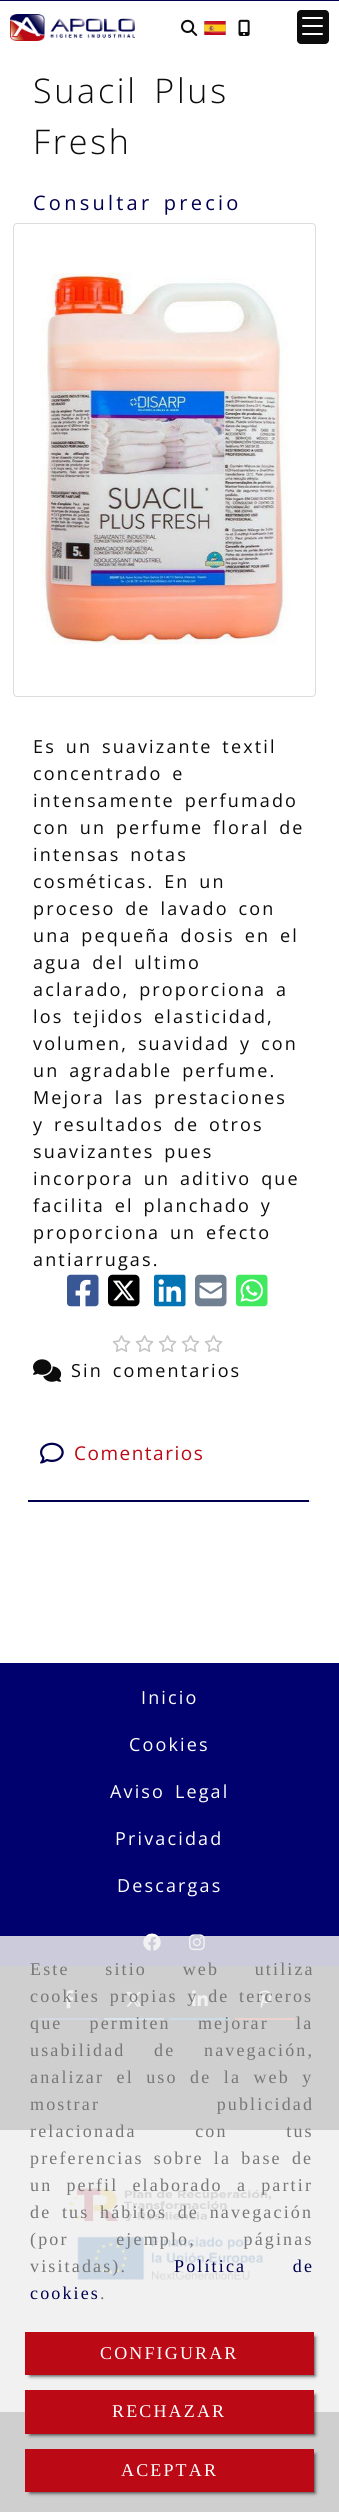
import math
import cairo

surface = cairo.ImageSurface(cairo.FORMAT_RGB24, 339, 2512)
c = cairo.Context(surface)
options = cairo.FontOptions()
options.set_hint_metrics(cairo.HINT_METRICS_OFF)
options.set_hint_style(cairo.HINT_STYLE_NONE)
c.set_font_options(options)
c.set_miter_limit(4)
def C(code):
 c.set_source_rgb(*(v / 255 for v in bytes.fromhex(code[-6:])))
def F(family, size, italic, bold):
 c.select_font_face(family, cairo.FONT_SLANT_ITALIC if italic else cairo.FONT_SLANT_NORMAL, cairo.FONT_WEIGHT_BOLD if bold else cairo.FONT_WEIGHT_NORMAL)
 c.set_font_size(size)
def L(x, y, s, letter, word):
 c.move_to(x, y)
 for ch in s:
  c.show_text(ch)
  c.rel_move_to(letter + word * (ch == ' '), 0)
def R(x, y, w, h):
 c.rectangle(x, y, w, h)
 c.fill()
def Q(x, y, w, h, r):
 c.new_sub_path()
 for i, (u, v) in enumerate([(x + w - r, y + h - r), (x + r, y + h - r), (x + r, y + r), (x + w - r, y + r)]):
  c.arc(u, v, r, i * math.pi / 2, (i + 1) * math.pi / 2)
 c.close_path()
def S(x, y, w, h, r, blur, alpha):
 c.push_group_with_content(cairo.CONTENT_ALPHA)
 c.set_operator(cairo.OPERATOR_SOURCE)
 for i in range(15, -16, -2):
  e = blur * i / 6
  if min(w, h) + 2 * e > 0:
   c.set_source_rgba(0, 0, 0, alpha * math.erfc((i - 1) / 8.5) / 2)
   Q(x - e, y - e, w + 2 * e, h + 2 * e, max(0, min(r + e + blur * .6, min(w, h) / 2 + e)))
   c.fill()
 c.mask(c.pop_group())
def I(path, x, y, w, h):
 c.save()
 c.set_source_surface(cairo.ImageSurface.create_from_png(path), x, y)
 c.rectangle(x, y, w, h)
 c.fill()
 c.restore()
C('ffffff')
c.paint()
C('00004f')
R(0,0,339,1)
I('1.png',10,14,125,27)
I('2.png',181,19,17,17)
I('3.png',204,21,22,14)
I('4.png',238,19,12,17)
C('0c0c0c')
Q(297,10,32,34,4)
c.fill()
C('ffffff')
Q(302,25,21,2,1)
c.fill()
Q(302,17,21,2,1)
c.fill()
Q(302,33,21,2,1)
c.fill()
F('Open Sans Light',34,0,0)
C('0c0c0c')
L(33,103,'Suacil Plus',2.75,5)
L(33,154,'Fresh',2.75,0)
F('Open Sans',20,0,0)
C('00004f')
L(33,210,'Consultar precio',3.25,3)
Q(13.5,223.5,302,473,3.5)
C('dddddd')
c.set_line_width(1)
c.stroke()
I('5.png',40,272,249,373)
F('Open Sans',18,0,0)
C('0c0c0c')
L(33,753,'Es un suavizante textil',2.15,3)
L(33,780,'concentrado e',2.15,3)
L(33,807,'intensamente perfumado',2.15,3)
L(33,834,'con un perfume floral de',2.15,3)
L(33,861,'intensas notas',2.15,3)
L(33,888,'cosméticas. En un',2.15,3)
L(33,915,'proceso de lavado con',2.15,3)
L(33,942,'una pequeña dosis en el',2.15,3)
L(33,969,'agua del ultimo',2.15,3)
L(33,996,'aclarado, proporciona a',2.15,3)
L(33,1023,'los tejidos elasticidad,',2.15,3)
L(33,1050,'volumen, suavidad y con',2.15,3)
L(33,1077,'un agradable perfume.',2.15,3)
L(33,1104,'Mejora las prestaciones',2.15,3)
L(33,1131,'y resultados de otros',2.15,3)
L(33,1158,'suavizantes pues',2.15,3)
L(33,1185,'incorpora un aditivo que',2.15,3)
L(33,1212,'facilita el planchado y',2.15,3)
L(33,1239,'proporciona un efecto',2.15,3)
L(33,1266,'antiarrugas.',2.15,0)
I('6.png',67,1274,32,33)
I('7.png',108,1274,32,33)
I('8.png',154,1274,32,33)
I('9.png',195,1274,32,33)
I('10.png',236,1274,32,33)
I('11.png',112,1335,19,17)
I('11.png',135,1335,19,17)
I('11.png',158,1335,19,17)
I('11.png',181,1335,19,17)
I('11.png',204,1335,19,17)
I('12.png',33,1359,29,23)
L(71,1377,'Sin comentarios',2.15,3)
C('dddddd')
R(309,1501,2,1)
I('13.png',40,1442,24,22)
F('Open Sans',19,0,0)
C('bb0915')
L(74,1460,'Comentarios',1.5,0)
C('00004f')
R(28,1500,281,2)
C('1e1e1e')
R(0,2412,339,100)
C('00006e')
R(0,1663,339,303)
F('Open Sans',18,0,0)
C('ffffff')
L(141,1704,'Inicio',2.15,0)
L(129,1751,'Cookies',2.15,0)
L(110,1798,'Aviso Legal',2.15,3)
L(115,1845,'Privacidad',2.15,0)
L(117,1892,'Descargas',2.15,0)
I('14.png',143,1933,18,18)
I('15.png',189,1934,16,17)
C('1e1e1e')
R(0,1966,339,164)
C('3a5795')
R(39,2018,60,2)
I('16.png',63,1990,11,19)
C('5ea9dd')
R(104,2018,60,2)
I('17.png',126,1991,16,16)
C('0274b3')
R(169,2018,61,2)
I('18.png',192,1990,16,16)
C('dc3914')
R(235,2018,60,2)
I('19.png',258,1990,14,18)
I('20.png',68,2188,203,33)
I('21.png',77,2236,187,44)
c.set_source_rgba(0.933,0.933,0.933,0.85)
R(0,1936,339,576)
F('Liberation Serif',18,0,0)
C('777777')
L(30,1975,'Este sitio web utiliza',2.15,29)
L(30,2002,'cookies propias y de terceros',2.15,3)
L(30,2029,'que permiten mejorar la',2.15,20.5)
L(30,2056,'usabilidad de navegación,',2.15,22)
L(30,2083,'analizar el uso de la web y',2.15,5.75)
L(30,2110,'mostrar publicidad',2.15,110)
L(30,2137,'relacionada con tus',2.15,52)
L(30,2164,'preferencias sobre la base de',2.15,3.5)
L(30,2191,'un perfil elaborado a partir',2.15,7.5)
L(30,2218,'de tus hábitos de navegación',2.15,4)
L(30,2245,'(por ejemplo, páginas',2.15,41)
L(30,2272,'visitadas).',2.15,0)
C('00004f')
L(174,2272,'Política de',2.15,40)
L(30,2299,'cookies',2.15,0)
C('777777')
L(100,2299,'.',2.15,0)
C('000000')
S(30,2337,285,39,0,2,.75)
C('bb0915')
R(25,2332,289,43)
C('ffffff')
L(100,2359,'CONFIGURAR',2.15,0)
C('000000')
S(30,2395,285,40,0,2,.75)
C('bb0915')
R(25,2390,289,44)
C('ffffff')
L(112,2417,'RECHAZAR',2.15,0)
C('000000')
S(30,2454,285,39,0,2,.75)
C('bb0915')
R(25,2449,289,43)
C('ffffff')
L(121,2476,'ACEPTAR',2.15,0)
surface.write_to_png('o.png')
